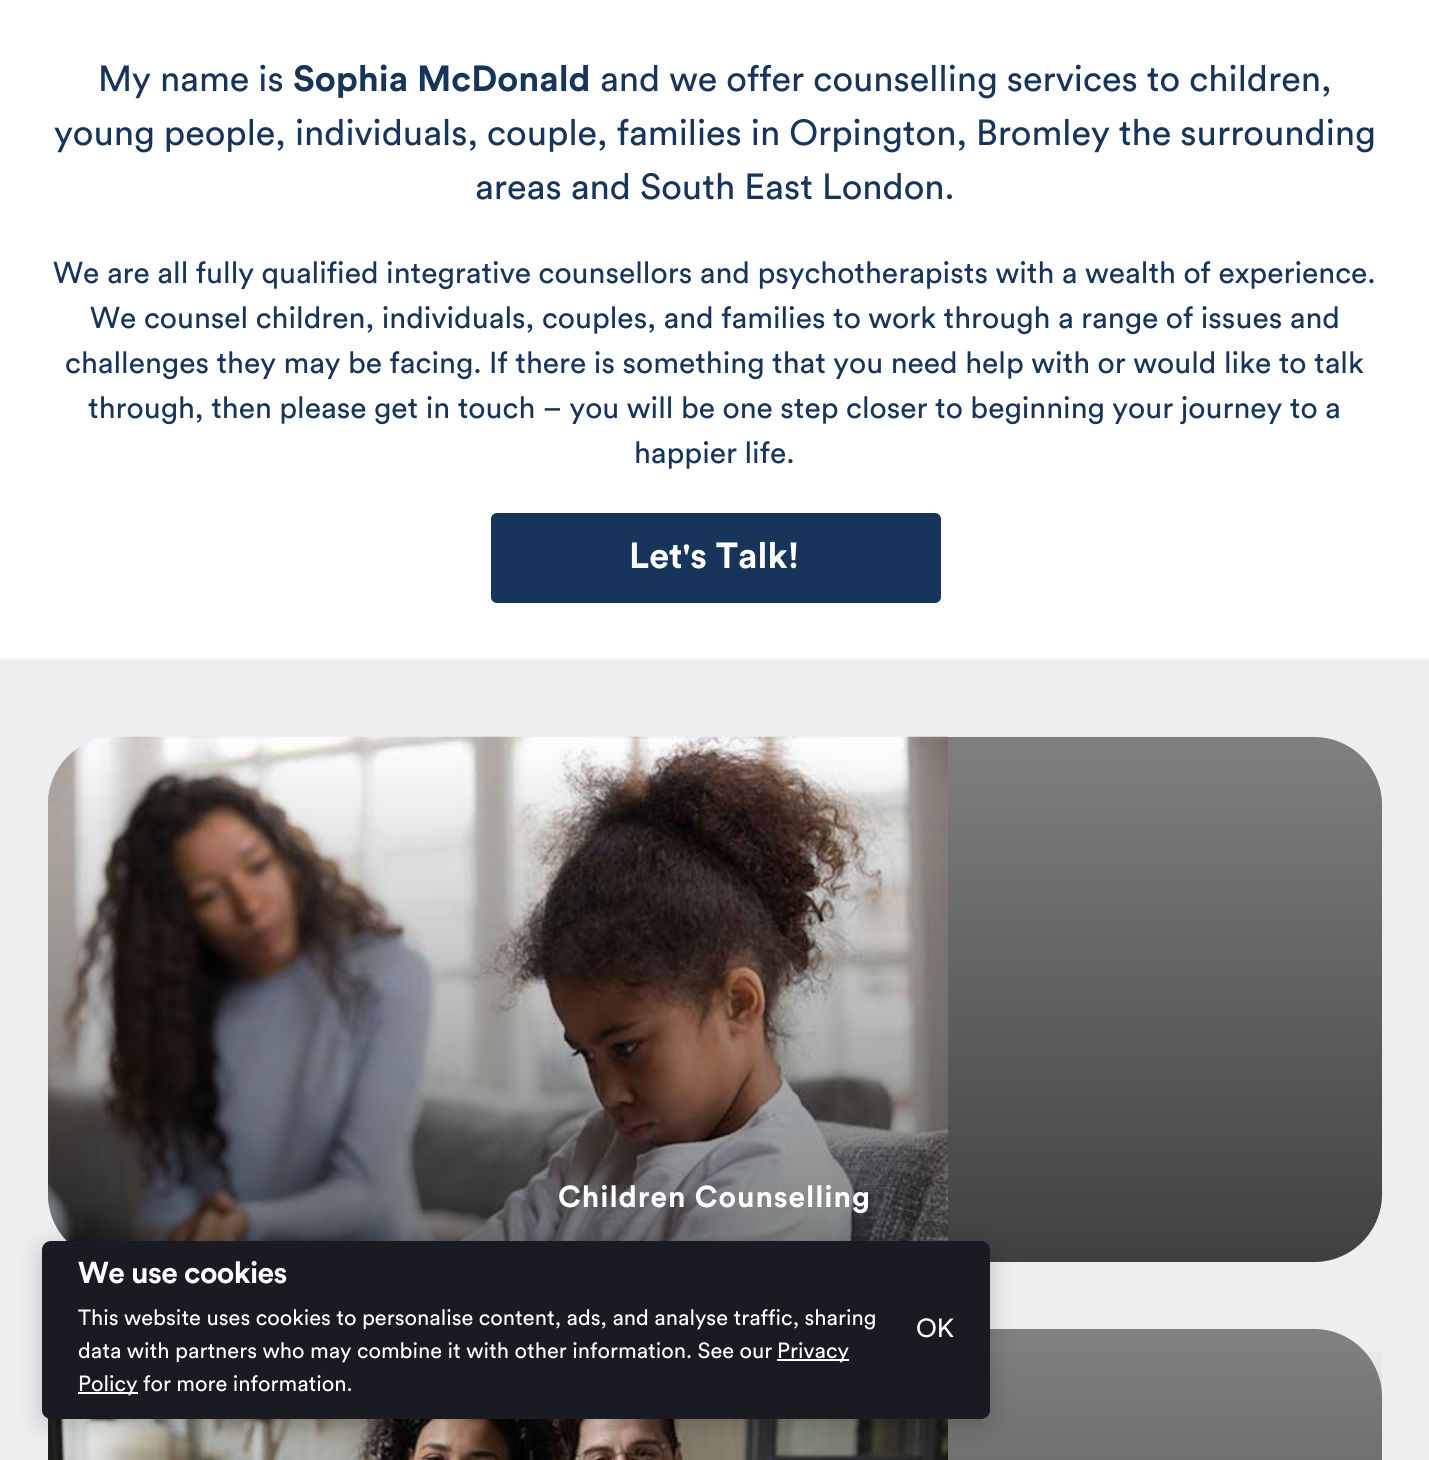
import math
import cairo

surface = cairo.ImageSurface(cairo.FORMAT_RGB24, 1429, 1460)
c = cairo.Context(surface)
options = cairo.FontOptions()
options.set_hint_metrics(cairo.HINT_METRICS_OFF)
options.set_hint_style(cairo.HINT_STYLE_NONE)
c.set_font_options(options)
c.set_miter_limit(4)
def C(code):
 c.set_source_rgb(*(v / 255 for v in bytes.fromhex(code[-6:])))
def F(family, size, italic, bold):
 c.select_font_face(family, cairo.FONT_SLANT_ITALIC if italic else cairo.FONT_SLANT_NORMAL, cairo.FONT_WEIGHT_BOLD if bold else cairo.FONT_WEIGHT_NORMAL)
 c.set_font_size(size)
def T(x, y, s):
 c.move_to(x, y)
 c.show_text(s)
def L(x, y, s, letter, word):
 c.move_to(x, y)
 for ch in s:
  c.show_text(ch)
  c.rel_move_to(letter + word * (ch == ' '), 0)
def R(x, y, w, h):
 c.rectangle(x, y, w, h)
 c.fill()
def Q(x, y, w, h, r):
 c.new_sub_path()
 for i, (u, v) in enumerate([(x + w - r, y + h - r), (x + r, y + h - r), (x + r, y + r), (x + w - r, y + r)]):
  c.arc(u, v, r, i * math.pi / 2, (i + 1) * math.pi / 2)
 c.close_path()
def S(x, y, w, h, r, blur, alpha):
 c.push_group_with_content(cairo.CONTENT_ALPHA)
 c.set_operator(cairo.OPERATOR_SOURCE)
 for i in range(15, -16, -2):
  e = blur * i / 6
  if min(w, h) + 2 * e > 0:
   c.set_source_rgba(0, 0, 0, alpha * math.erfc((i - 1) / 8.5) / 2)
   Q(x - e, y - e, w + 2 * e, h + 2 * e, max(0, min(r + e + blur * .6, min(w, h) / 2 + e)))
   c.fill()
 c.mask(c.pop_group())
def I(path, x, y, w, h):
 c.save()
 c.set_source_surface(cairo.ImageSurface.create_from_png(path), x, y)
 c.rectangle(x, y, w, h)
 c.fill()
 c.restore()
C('ffffff')
c.paint()
F('Circular',36,0,0)
C('17345a')
T(98,91,'My name is')
F('Circular',36,0,1)
T(293,91,'Sophia McDonald')
F('Circular',36,0,0)
T(600,91,'and we offer counselling services to children,')
T(54,145,'young people, individuals, couple, families in Orpington, Bromley the surrounding')
T(475,199,'areas and South East London.')
F('Circular',30,0,0)
T(53,283,'We are all fully qualified integrative counsellors and psychotherapists with a wealth of experience.')
T(90,328,'We counsel children, individuals, couples, and families to work through a range of issues and')
T(65,373,'challenges they may be facing. If there is something that you need help with or would like to talk')
T(88,418,'through, then please get in touch – you will be one step closer to beginning your journey to a')
T(634,463,'happier life.')
Q(491,513,450,90,6)
c.fill()
F('Circular',36,0,1)
C('ffffff')
T(629,568,'Let\'s Talk!')
C('eeeef0')
R(0,659,1429,801)
C('808080')
Q(48,737,1334,525,68)
c.fill()
I('1.png',48,736,900,505)
gradient = cairo.LinearGradient(715,736,715,1262)
gradient.add_color_stop_rgba(0,0,0,0,0)
gradient.add_color_stop_rgba(1,0,0,0,.5)
c.set_source(gradient)
Q(48,737,1334,525,68)
c.fill()
F('Circular',30,0,1)
C('ffffff')
L(558,1207,'Children Counselling',.9,0)
C('808080')
Q(48,1329,1334,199,68)
c.fill()
I('2.png',48,1418,900,42)
gradient = cairo.LinearGradient(715,1329,715,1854)
gradient.add_color_stop_rgba(0,0,0,0,0)
gradient.add_color_stop_rgba(1,0,0,0,.5)
c.set_source(gradient)
R(48,1352,1334,108)
C('000000')
S(42,1247,948,178,9,13.5,.2)
C('191a22')
Q(42,1241,948,178,9)
c.fill()
C('ffffff')
L(78,1283,'We use cookies',-.6,0)
F('Circular',21.8,0,0)
T(78,1325,'This website uses cookies to personalise content, ads, and analyse traffic, sharing')
T(78,1358,'data with partners who may combine it with other information. See our')
R(777,1359,72,2)
T(777,1358,'Privacy')
R(78,1392,60,2)
T(78,1391,'Policy for more information.')
F('Circular',26,0,0)
T(916,1337,'OK')
surface.write_to_png('o.png')
